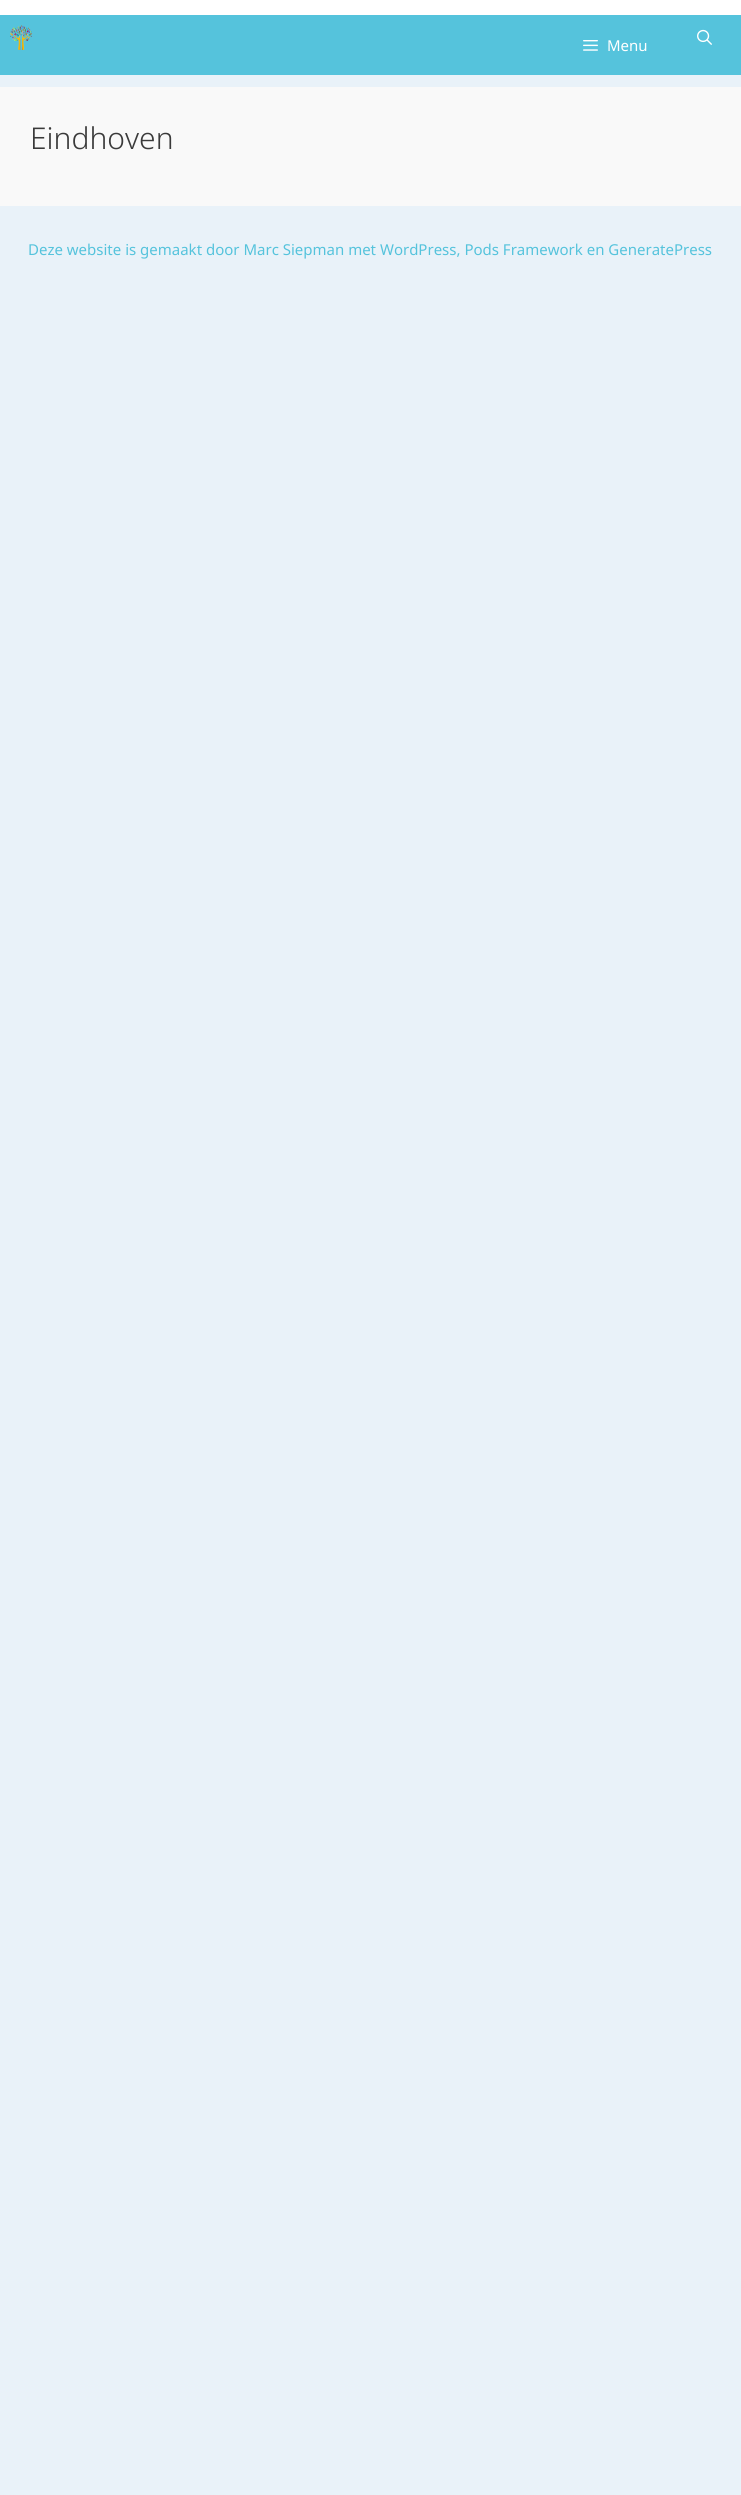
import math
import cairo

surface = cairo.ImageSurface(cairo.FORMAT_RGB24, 741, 2495)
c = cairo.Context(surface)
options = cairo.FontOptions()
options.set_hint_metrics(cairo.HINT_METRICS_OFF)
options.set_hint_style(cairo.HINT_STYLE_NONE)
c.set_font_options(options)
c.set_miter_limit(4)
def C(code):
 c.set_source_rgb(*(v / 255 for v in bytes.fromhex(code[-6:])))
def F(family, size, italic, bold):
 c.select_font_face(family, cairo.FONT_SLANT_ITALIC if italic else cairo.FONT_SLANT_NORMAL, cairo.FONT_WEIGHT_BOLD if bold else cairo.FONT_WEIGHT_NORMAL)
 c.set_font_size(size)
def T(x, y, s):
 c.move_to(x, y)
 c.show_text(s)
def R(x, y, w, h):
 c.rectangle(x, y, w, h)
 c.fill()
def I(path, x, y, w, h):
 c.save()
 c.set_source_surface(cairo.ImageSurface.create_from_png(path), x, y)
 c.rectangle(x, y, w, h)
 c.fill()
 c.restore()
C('e9f2f9')
c.paint()
C('ffffff')
R(0,0,741,15)
C('55c3dc')
R(0,15,741,60)
I('1.png',10,25,22,25)
I('2.png',583,40,15,11)
F('Noto Sans',15,0,0)
C('ffffff')
T(607,51,'Menu')
I('3.png',697,29,15,16)
C('f9f9f9')
R(0,87,741,119)
F('Noto Sans Light',30,0,0)
C('3a3a3a')
T(30,149,'Eindhoven')
F('Noto Sans',15,0,0)
C('55c3dc')
T(28,255,'Deze website is gemaakt door Marc Siepman met WordPress, Pods Framework en GeneratePress')
surface.write_to_png('o.png')
